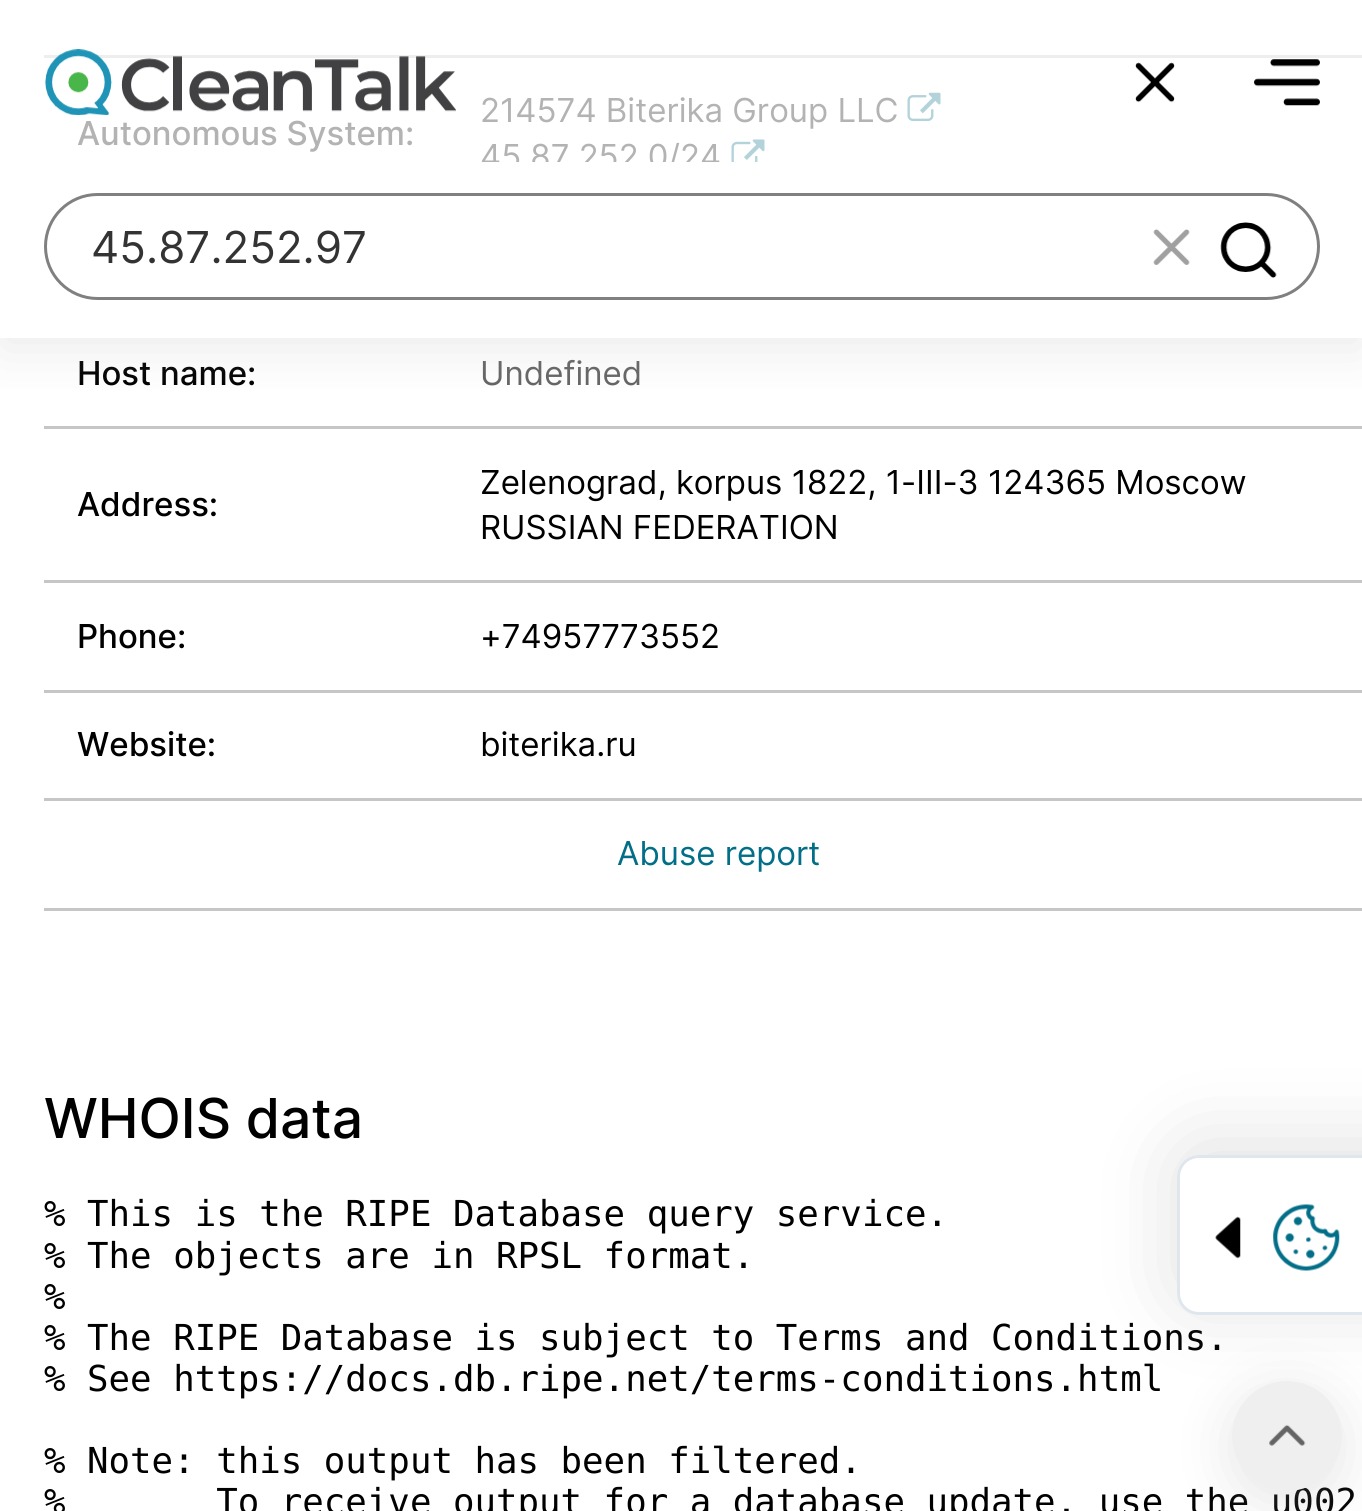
import math
import cairo

surface = cairo.ImageSurface(cairo.FORMAT_RGB24, 1362, 1511)
c = cairo.Context(surface)
options = cairo.FontOptions()
options.set_hint_metrics(cairo.HINT_METRICS_OFF)
options.set_hint_style(cairo.HINT_STYLE_NONE)
c.set_font_options(options)
c.set_miter_limit(4)
def C(code):
 c.set_source_rgb(*(v / 255 for v in bytes.fromhex(code[-6:])))
def F(family, size, italic, bold):
 c.select_font_face(family, cairo.FONT_SLANT_ITALIC if italic else cairo.FONT_SLANT_NORMAL, cairo.FONT_WEIGHT_BOLD if bold else cairo.FONT_WEIGHT_NORMAL)
 c.set_font_size(size)
def T(x, y, s):
 c.move_to(x, y)
 c.show_text(s)
def R(x, y, w, h):
 c.rectangle(x, y, w, h)
 c.fill()
def Q(x, y, w, h, r):
 c.new_sub_path()
 for i, (u, v) in enumerate([(x + w - r, y + h - r), (x + r, y + h - r), (x + r, y + r), (x + w - r, y + r)]):
  c.arc(u, v, r, i * math.pi / 2, (i + 1) * math.pi / 2)
 c.close_path()
def S(x, y, w, h, r, blur, alpha):
 c.push_group_with_content(cairo.CONTENT_ALPHA)
 c.set_operator(cairo.OPERATOR_SOURCE)
 for i in range(15, -16, -2):
  e = blur * i / 6
  if min(w, h) + 2 * e > 0:
   c.set_source_rgba(0, 0, 0, alpha * math.erfc((i - 1) / 8.5) / 2)
   Q(x - e, y - e, w + 2 * e, h + 2 * e, max(0, min(r + e + blur * .6, min(w, h) / 2 + e)))
   c.fill()
 c.mask(c.pop_group())
def I(path, x, y, w, h):
 c.save()
 c.set_source_surface(cairo.ImageSurface.create_from_png(path), x, y)
 c.rectangle(x, y, w, h)
 c.fill()
 c.restore()
C('ffffff')
c.paint()
C('eeeeee')
R(44,55,1318,3)
F('Inter Medium',33,0,0)
C('b3b3b3')
T(77,145,'Autonomous System:')
F('Inter',33,0,0)
T(480,122,'214574 Biterika Group LLC')
I('1.png',907,92,34,29)
T(480,168,'45.87.252.0/24')
I('2.png',731,139,34,23)
F('Inter Medium',33,0,0)
C('000000')
T(77,385,'Host name:')
C('c6c6c6')
R(44,426,1318,3)
F('Inter',33,0,0)
C('646464')
T(480,385,'Undefined')
F('Inter Medium',33,0,0)
C('000000')
T(77,516,'Address:')
C('c6c6c6')
R(44,580,1318,3)
F('Inter',33,0,0)
C('000000')
T(480,494,'Zelenograd, korpus 1822, 1-III-3 124365 Moscow')
T(480,539,'RUSSIAN FEDERATION')
F('Inter Medium',33,0,0)
T(77,648,'Phone:')
C('c6c6c6')
R(44,690,1318,3)
F('Inter',33,0,0)
C('000000')
T(480,648,'+74957773552')
F('Inter Medium',33,0,0)
T(77,756,'Website:')
C('c6c6c6')
R(44,798,1318,3)
F('Inter',33,0,0)
C('000000')
T(480,756,'biterika.ru')
C('c6c6c6')
R(44,908,1318,3)
C('026e88')
T(617,865,'Abuse report')
F('Inter Medium',55,0,0)
C('000000')
T(44,1138,'WHOIS data')
F('DejaVu Sans Mono',35.75,0,0)
T(44,1226,'% This is the RIPE Database query service.')
T(44,1268,'% The objects are in RPSL format.')
T(44,1309,'%')
T(44,1350,'% The RIPE Database is subject to Terms and Conditions.')
T(44,1391,'% See https://docs.db.ripe.net/terms-conditions.html')
T(44,1473,'% Note: this output has been filtered.')
T(44,1514,'%       To receive output for a database update, use the u002')
c.save()
c.set_fill_rule(cairo.FILL_RULE_EVEN_ODD)
c.new_path()
c.move_to(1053,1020)
c.line_to(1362,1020)
c.line_to(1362,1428)
c.line_to(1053,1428)
c.close_path()
c.move_to(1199,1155)
c.line_to(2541,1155)
c.line_to(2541,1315)
c.line_to(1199,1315)
c.curve_to(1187,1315,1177,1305,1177,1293)
c.line_to(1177,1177)
c.curve_to(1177,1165,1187,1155,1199,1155)
c.close_path()
c.clip()
C('878787')
S(1177,1144,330,160,22,41,.25)
c.restore()
c.set_source_rgba(1,1,1,0.7)
c.new_path()
c.move_to(1199,1156.5)
c.line_to(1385.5,1156.5)
c.line_to(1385.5,1313.5)
c.line_to(1199,1313.5)
c.curve_to(1187.5,1313.5,1178.5,1304.5,1178.5,1293)
c.line_to(1178.5,1177)
c.curve_to(1178.5,1165.5,1187.5,1156.5,1199,1156.5)
c.close_path()
c.fill_preserve()
C('dfe6ed')
c.set_line_width(3)
c.stroke()
I('3.png',1215,1216,26,43)
I('4.png',1273,1204,67,67)
c.save()
c.rectangle(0,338,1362,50)
c.clip()
C('adadad')
S(0,11,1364,338,0,27.5,.25)
c.restore()
I('5.png',45,49,67,66)
I('6.png',121,56,335,56)
I('7.png',1254,59,66,47)
I('8.png',1135,62,40,41)
C('ffffff')
R(482,162,238,10)
Q(45.5,194.5,1273,104,52)
C('808080')
c.stroke()
F('Inter',44,0,0)
C('333333')
T(91,263,'45.87.252.97')
I('9.png',1153,229,37,36)
I('10.png',1220,222,57,56)
C('9e9e9e')
S(1232,1392,110,110,55,27.5,.25)
C('efefef')
c.arc(1287,1436,55,0,2 * math.pi)
c.fill()
I('11.png',1269,1424,37,22)
surface.write_to_png('o.png')
